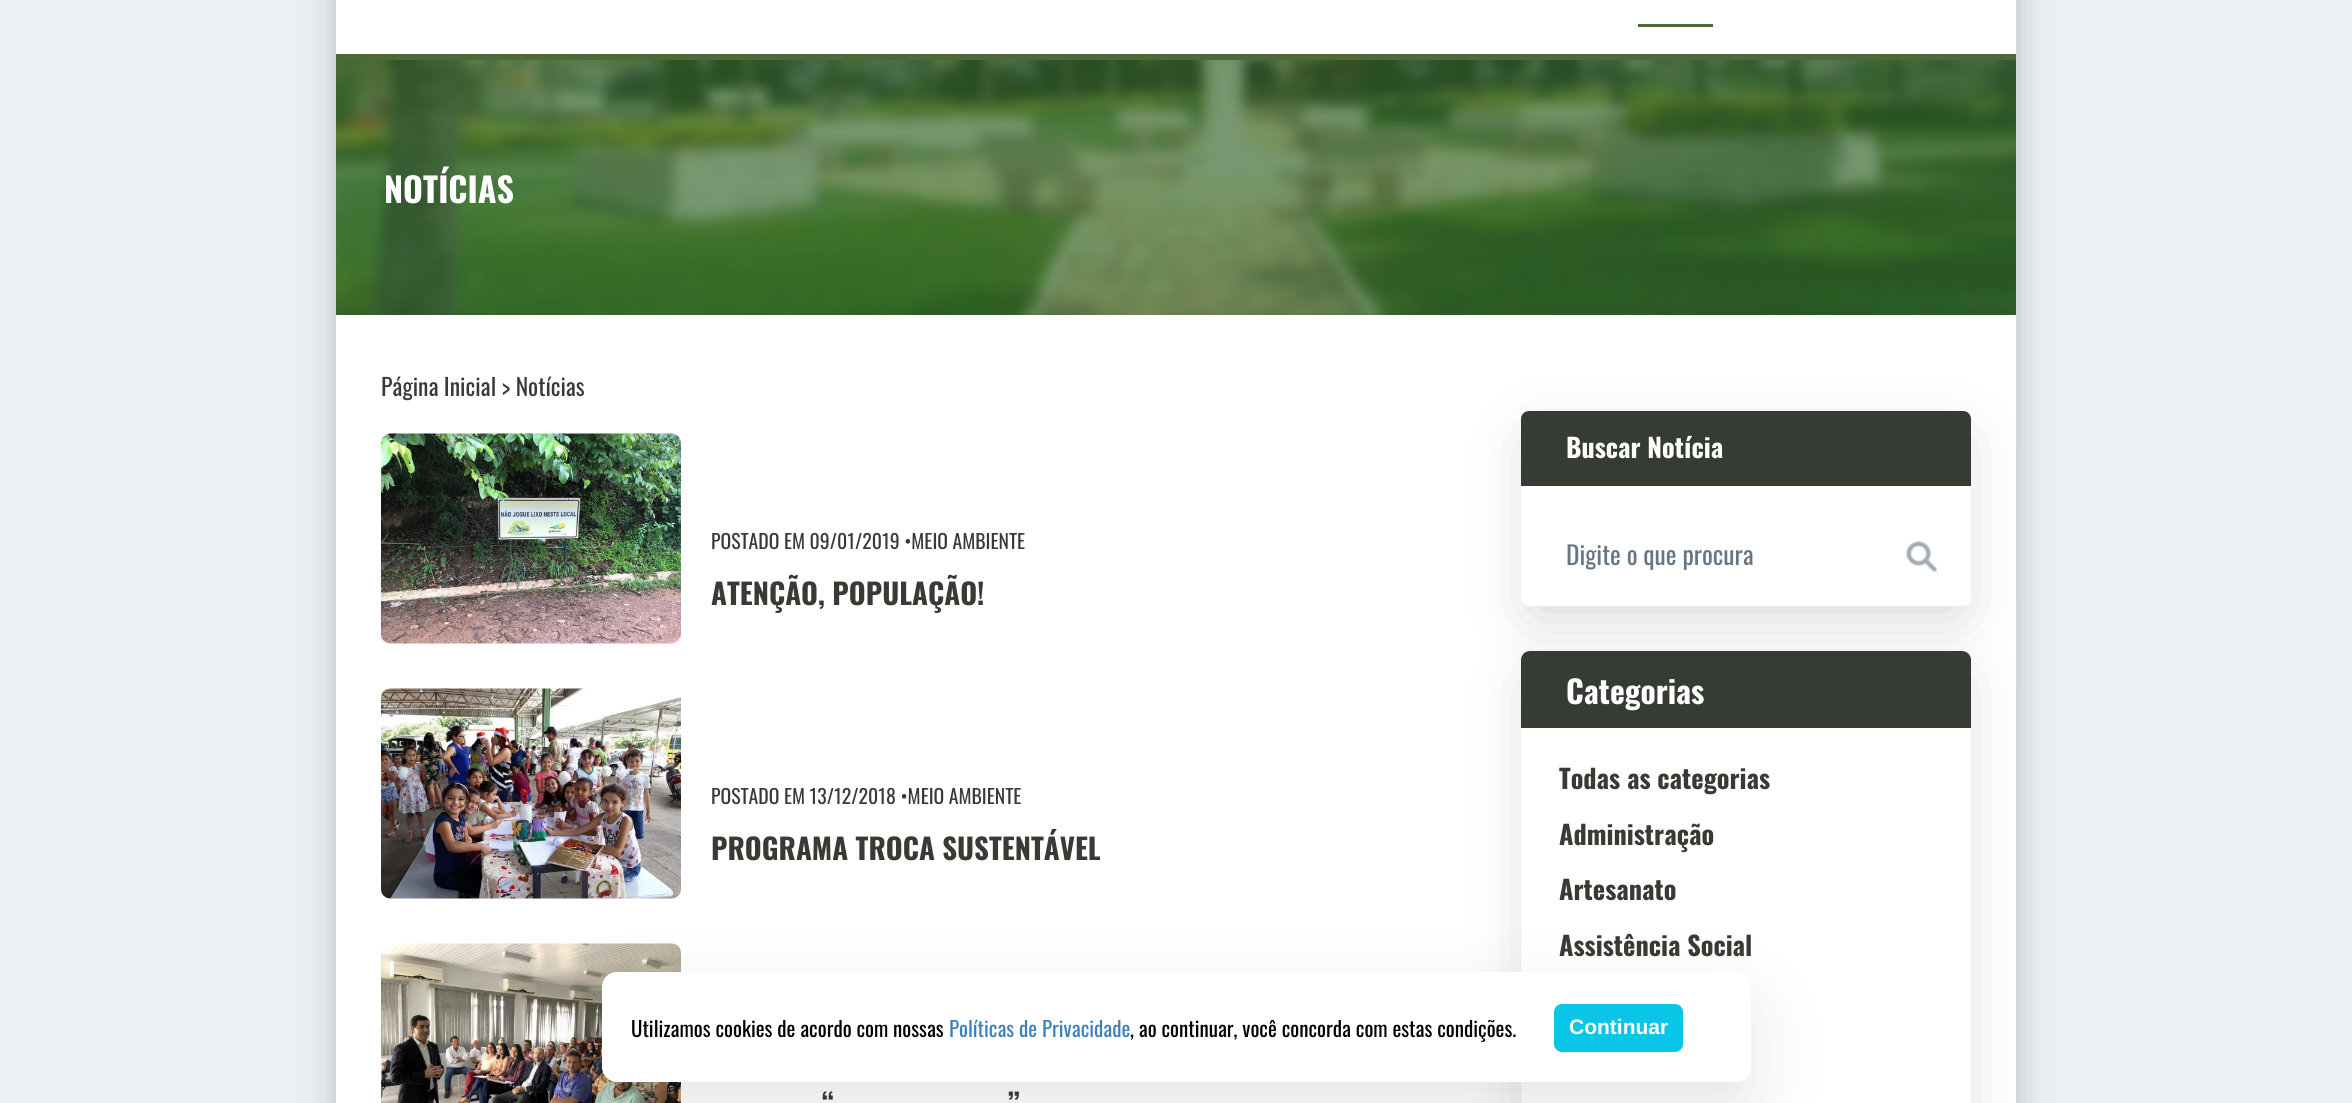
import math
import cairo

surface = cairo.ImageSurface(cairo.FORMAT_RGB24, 2352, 1103)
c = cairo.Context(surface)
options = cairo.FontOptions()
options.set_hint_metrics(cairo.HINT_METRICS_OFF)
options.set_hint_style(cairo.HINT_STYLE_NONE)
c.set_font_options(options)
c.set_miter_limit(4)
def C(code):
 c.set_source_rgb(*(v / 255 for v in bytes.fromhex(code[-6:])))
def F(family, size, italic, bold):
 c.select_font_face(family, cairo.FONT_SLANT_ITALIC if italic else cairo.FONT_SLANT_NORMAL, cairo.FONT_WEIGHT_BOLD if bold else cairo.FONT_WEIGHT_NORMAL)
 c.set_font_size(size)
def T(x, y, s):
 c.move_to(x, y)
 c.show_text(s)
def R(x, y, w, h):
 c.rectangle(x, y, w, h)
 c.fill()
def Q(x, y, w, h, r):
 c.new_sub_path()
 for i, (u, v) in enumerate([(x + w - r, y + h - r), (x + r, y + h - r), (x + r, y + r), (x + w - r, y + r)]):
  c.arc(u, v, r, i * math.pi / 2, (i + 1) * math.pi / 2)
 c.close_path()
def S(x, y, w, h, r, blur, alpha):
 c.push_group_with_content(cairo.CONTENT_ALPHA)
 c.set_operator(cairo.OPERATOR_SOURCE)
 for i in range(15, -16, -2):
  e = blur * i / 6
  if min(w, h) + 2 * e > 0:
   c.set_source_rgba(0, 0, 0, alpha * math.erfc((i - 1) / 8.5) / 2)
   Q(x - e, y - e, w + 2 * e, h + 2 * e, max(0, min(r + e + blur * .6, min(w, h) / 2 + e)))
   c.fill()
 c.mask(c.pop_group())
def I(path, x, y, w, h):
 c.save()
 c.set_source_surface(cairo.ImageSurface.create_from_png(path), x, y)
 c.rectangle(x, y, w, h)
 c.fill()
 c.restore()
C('edf0f3')
c.paint()
C('000000')
S(335,-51,1683,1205,0,17,.2)
C('ffffff')
R(336,0,1680,54)
C('4c6b39')
R(336,54,1680,6)
R(1638,24,75,3)
I('1.png',336,60,1680,255)
F('Oswald',34,0,1)
C('ffffff')
T(384,203,'NOTÍCIAS')
R(336,315,1680,788)
F('Oswald',23.6,0,0)
C('363b34')
T(381,396,'Página Inicial > Notícias')
I('2.png',380,433,302,211)
F('Oswald',19.75,0,0)
T(711,549,'POSTADO EM 09/01/2019 •MEIO AMBIENTE')
F('Oswald',28.9,0,1)
T(711,605,'ATENÇÃO, POPULAÇÃO!')
I('3.png',381,688,300,211)
F('Oswald',19.75,0,0)
T(711,804,'POSTADO EM 13/12/2018 •MEIO AMBIENTE')
F('Oswald',28.9,0,1)
T(711,860,'PROGRAMA TROCA SUSTENTÁVEL')
I('4.png',381,943,300,160)
T(822,1115,'“')
T(1007,1115,'”')
C('000000')
S(1536,444,420,165,0,31.5,.2)
C('ffffff')
Q(1521,411,450,195,8)
c.fill()
C('363b34')
c.new_path()
c.move_to(1529,411)
c.line_to(1963,411)
c.curve_to(1967.5,411,1971,414.5,1971,419)
c.line_to(1971,486)
c.line_to(1521,486)
c.line_to(1521,419)
c.curve_to(1521,414.5,1524.5,411,1529,411)
c.close_path()
c.fill()
F('Oswald',26.25,0,1)
C('ffffff')
T(1566,458,'Buscar Notícia')
F('Oswald',25.5,0,0)
C('667682')
T(1566,565,'Digite o que procura')
I('5.png',1906,541,31,31)
C('000000')
S(1536,684,420,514,0,31.5,.2)
C('ffffff')
Q(1521,651,450,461,9)
c.fill()
C('363b34')
c.new_path()
c.move_to(1530,651)
c.line_to(1962,651)
c.curve_to(1967,651,1971,655,1971,660)
c.line_to(1971,728)
c.line_to(1521,728)
c.line_to(1521,660)
c.curve_to(1521,655,1525,651,1530,651)
c.close_path()
c.fill()
F('Oswald',31.5,0,1)
C('ffffff')
T(1566,704,'Categorias')
F('Oswald',26.25,0,1)
C('363b34')
T(1559,789,'Todas as categorias')
T(1559,845,'Administração')
T(1559,900,'Artesanato')
T(1559,956,'Assistência Social')
C('000000')
S(602,1002,1149,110,15,37.5,.1)
C('ffffff')
Q(602,972,1149,110,15)
c.fill()
F('Oswald',21,0,0)
C('000000')
T(631,1037,'Utilizamos cookies de acordo com nossas')
C('3c80bc')
T(949,1037,'Políticas de Privacidade')
C('000000')
T(1130,1037,', ao continuar, você concorda com estas condições.')
C('09c5e7')
Q(1554,1004,129,48,8)
c.fill()
F('Liberation Sans',21,0,1)
C('ffffff')
T(1569,1034,'Continuar')
surface.write_to_png('o.png')
